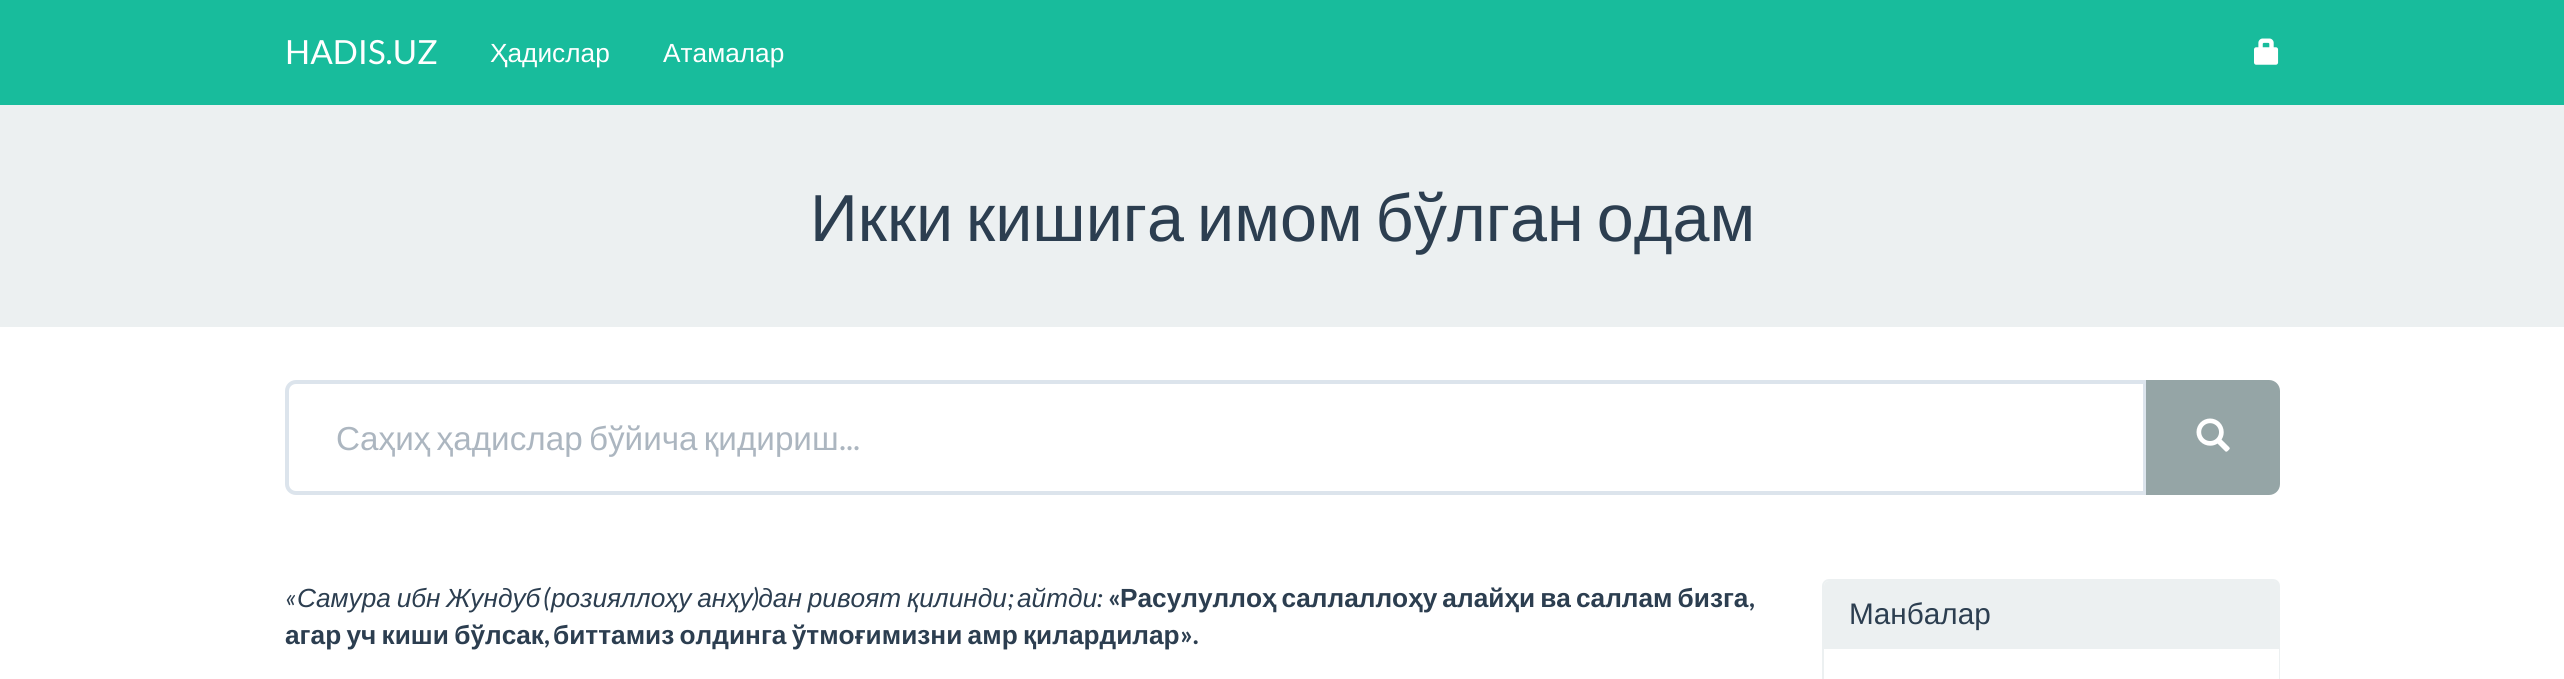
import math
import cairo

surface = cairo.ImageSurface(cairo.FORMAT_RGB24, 2564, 679)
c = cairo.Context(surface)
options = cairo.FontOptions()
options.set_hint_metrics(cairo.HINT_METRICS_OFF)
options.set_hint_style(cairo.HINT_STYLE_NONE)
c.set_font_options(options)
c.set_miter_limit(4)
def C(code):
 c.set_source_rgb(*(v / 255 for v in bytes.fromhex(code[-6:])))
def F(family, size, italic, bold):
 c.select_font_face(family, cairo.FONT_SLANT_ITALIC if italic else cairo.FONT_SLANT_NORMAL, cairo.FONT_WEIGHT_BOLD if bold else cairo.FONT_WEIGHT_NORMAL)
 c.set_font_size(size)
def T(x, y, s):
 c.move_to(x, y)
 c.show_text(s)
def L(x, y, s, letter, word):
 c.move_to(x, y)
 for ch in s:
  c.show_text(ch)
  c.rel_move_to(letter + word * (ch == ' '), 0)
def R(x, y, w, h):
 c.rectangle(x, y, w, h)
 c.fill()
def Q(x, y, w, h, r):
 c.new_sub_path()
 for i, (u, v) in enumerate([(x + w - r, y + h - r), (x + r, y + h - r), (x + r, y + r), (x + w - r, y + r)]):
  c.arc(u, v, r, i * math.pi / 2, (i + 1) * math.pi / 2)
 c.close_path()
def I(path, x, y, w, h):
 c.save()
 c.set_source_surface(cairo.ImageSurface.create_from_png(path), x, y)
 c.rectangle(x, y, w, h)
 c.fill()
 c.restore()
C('ffffff')
c.paint()
C('18bc9c')
R(0,0,2564,105)
F('Lato',33.25,0,0)
C('ffffff')
T(285,64,'HADIS.UZ')
F('Liberation Sans',26.25,0,0)
T(490,62,'Ҳадислар')
T(663,62,'Атамалар')
I('1.png',2254,38,25,27)
C('ecf0f1')
R(0,105,2564,222)
F('Liberation Sans',66.5,0,0)
C('2c3e50')
L(810,241,'Икки кишига имом бўлган одам',0,-5.5)
c.new_path()
c.move_to(296,382)
c.line_to(2145,382)
c.line_to(2145,493)
c.line_to(296,493)
c.curve_to(291,493,287,489,287,484)
c.line_to(287,391)
c.curve_to(287,386,291,382,296,382)
c.close_path()
C('dce4ec')
c.set_line_width(4)
c.stroke()
F('Liberation Sans',33.25,0,0)
C('acb6c0')
L(336,450,'Саҳиҳ ҳадислар бўйича қидириш',0,-3)
F('Lato',33.25,0,0)
T(839,450,'...')
C('95a5a6')
c.new_path()
c.move_to(2148,382)
c.line_to(2269,382)
c.curve_to(2274,382,2278,386,2278,391)
c.line_to(2278,484)
c.curve_to(2278,489,2274,493,2269,493)
c.line_to(2148,493)
c.close_path()
c.fill_preserve()
c.stroke()
I('2.png',2196,418,34,34)
F('Liberation Sans',26.25,1,0)
C('2c3e50')
L(297,607,'Самура ибн Жундуб',0,-1.5)
F('Lato',26.25,1,0)
T(543,607,'(')
F('Liberation Sans',26.25,1,0)
L(551,607,'розияллоҳу анҳу дан ривоят қилинди',0,-1.5)
F('Lato',26.25,1,0)
T(752,607,')')
T(285,607,'«')
T(1008,607,';')
F('Liberation Sans',26.25,1,0)
T(1017,607,'айтди')
F('Lato',26.25,1,0)
T(1097,607,':')
F('Lato',26.25,0,1)
T(1108,607,'«')
F('Liberation Sans',26.25,0,1)
L(1120,607,'Расулуллоҳ саллаллоҳу алайҳи ва саллам бизга',0,-2.25)
F('Lato',26.25,0,1)
T(1749,607,',')
F('Liberation Sans',26.25,0,1)
L(285,644,'агар уч киши бўлсак',0,-2)
F('Lato',26.25,0,1)
T(544,644,',')
F('Liberation Sans',26.25,0,1)
L(553,644,'биттамиз олдинга ўтмоғимизни амр қилардилар',0,-2)
F('Lato',26.25,0,1)
T(1180,644,'».')
Q(1823,580,456,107,6)
C('ecf0f1')
c.set_line_width(2)
c.stroke()
c.new_path()
c.move_to(1829,581)
c.line_to(2274,581)
c.curve_to(2277,581,2279,583,2279,586)
c.line_to(2279,649)
c.line_to(1824,649)
c.line_to(1824,586)
c.curve_to(1824,583,1826,581,1829,581)
c.close_path()
c.fill()
F('Liberation Sans',29.75,0,0)
C('2c3e50')
T(1849,624,'Манбалар')
C('ffffff')
R(2278,649,1,30)
surface.write_to_png('o.png')
